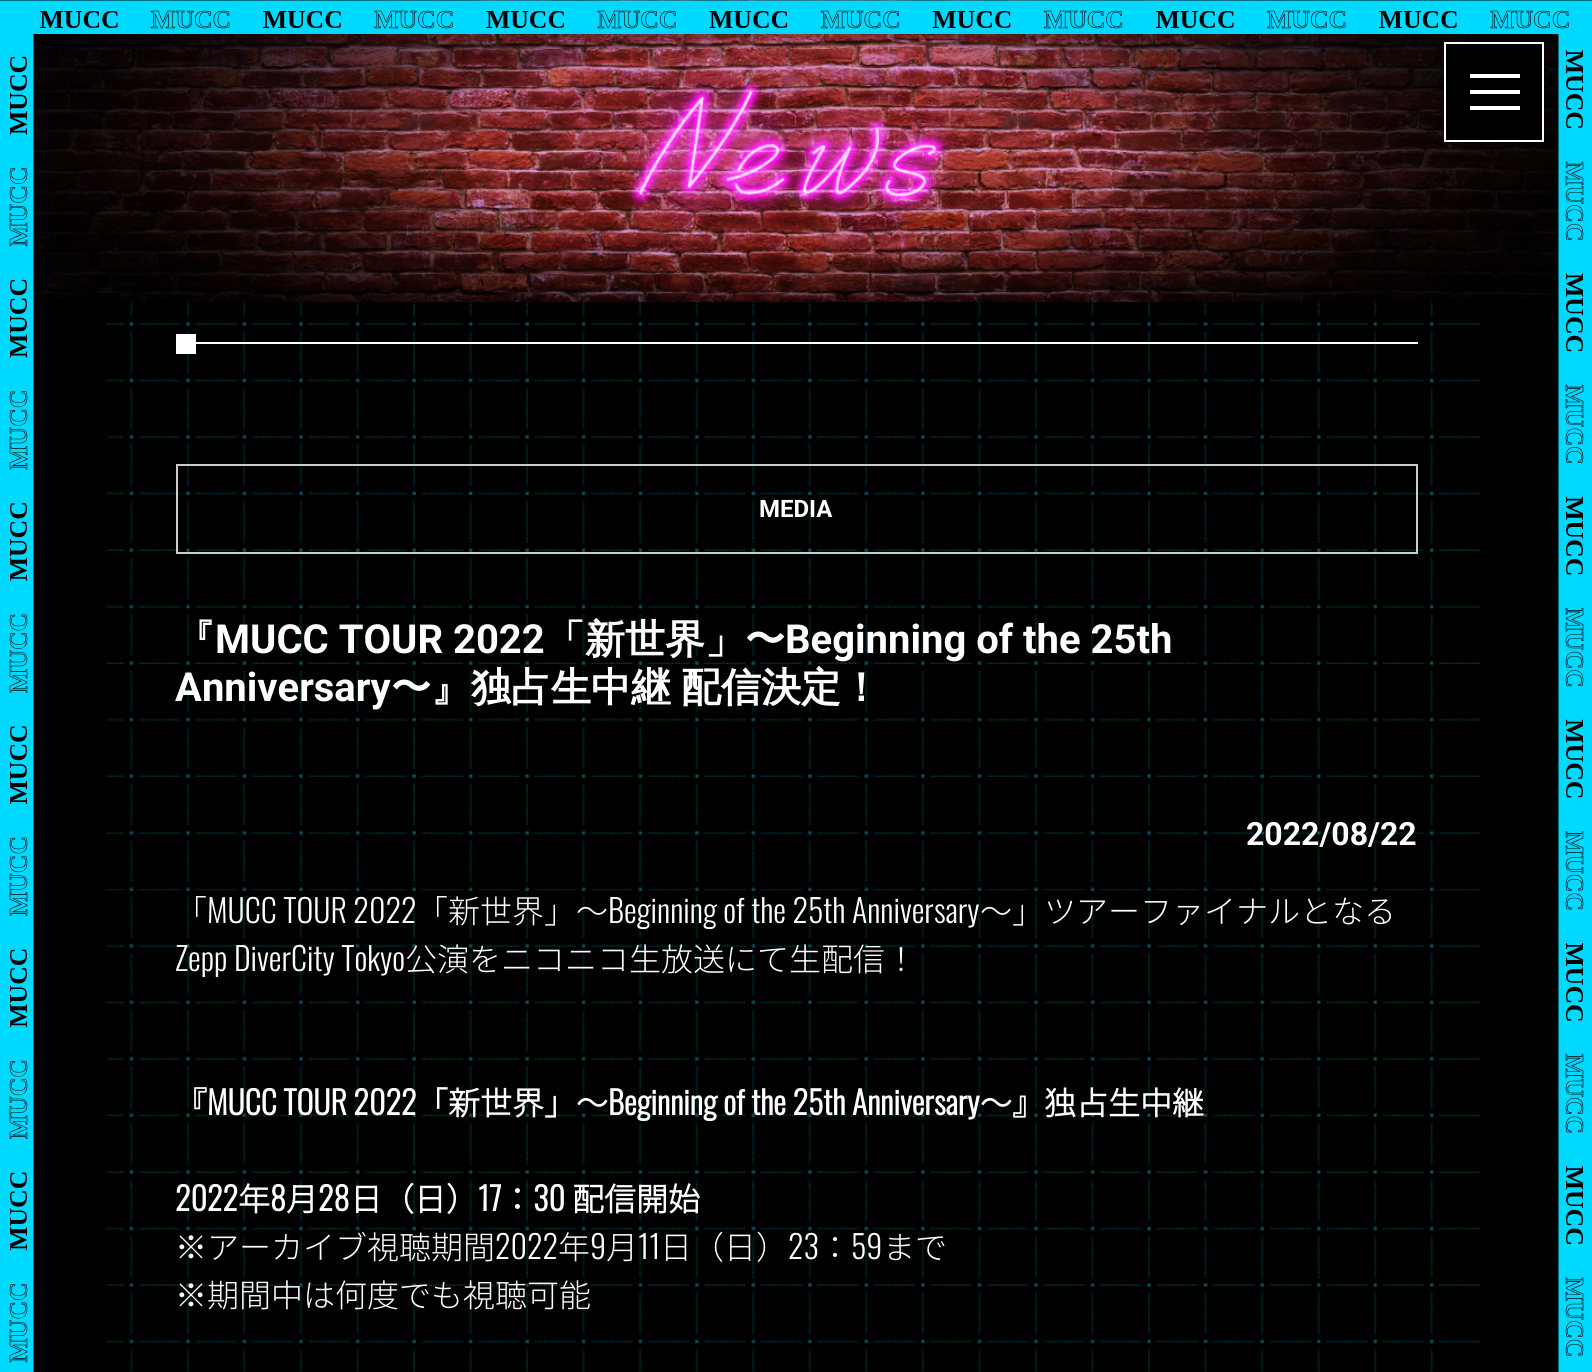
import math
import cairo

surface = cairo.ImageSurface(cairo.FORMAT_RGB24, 1592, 1372)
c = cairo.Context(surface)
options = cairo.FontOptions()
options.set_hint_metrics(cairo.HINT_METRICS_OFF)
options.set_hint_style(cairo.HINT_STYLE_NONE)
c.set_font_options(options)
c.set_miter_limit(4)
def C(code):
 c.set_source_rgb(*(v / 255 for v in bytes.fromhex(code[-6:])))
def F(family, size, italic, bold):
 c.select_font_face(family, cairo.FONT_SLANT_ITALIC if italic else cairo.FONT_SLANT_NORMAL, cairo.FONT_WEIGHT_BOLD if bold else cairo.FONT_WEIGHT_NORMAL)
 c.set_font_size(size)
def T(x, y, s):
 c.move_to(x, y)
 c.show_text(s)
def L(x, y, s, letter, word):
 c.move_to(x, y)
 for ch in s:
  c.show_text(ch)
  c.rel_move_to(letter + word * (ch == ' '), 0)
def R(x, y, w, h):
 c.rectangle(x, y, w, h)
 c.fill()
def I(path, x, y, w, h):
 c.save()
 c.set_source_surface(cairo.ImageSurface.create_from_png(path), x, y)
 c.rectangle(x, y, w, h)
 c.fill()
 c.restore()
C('000000')
c.paint()
I('2.png',30,0,1532,302)
I('3.png',106,302,1374,1070)
C('ffffff')
R(196,342,1222,2)
R(176,334,20,20)
c.rectangle(177,465,1240,88)
C('cccccc')
c.stroke()
F('Roboto',24,0,1)
C('ffffff')
T(759,517,'MEDIA')
F('WenQuanYi Zen Hei',40,0,1)
T(175,653,'『')
F('Roboto',40,0,1)
T(215,653,'MUCC TOUR 2022')
F('WenQuanYi Zen Hei',40,0,1)
T(545,653,'「新世界」〜')
F('Roboto',40,0,1)
T(785,653,'Beginning of the 25th')
T(175,701,'Anniversary')
F('WenQuanYi Zen Hei',40,0,1)
L(391,701,'〜』独占生中継 配信決定！',0,-2)
F('Roboto',32,0,1)
T(1246,845,'2022/08/22')
F('Noto Sans JP Thin',32,0,0)
T(175,923,'「')
F('Oswald Light',32,0,0)
T(207,923,'MUCC TOUR 2022')
F('Noto Sans JP Thin',32,0,0)
T(416,923,'「新世界」～')
F('Oswald Light',32,0,0)
T(608,923,'Beginning of the 25th Anniversary')
F('Noto Sans JP Thin',32,0,0)
T(980,923,'～」ツアーファイナルとなる')
F('Oswald Light',32,0,0)
T(175,971,'Zepp DiverCity Tokyo')
F('Noto Sans JP Thin',32,0,0)
T(405,971,'公演をニコニコ生放送にて生配信！')
F('Noto Sans JP',32,0,1)
T(175,1115,'『')
F('Oswald',32,0,1)
T(207,1115,'MUCC TOUR 2022')
F('Noto Sans JP',32,0,1)
T(416,1115,'「新世界」～')
F('Oswald',32,0,1)
T(608,1115,'Beginning of the 25th Anniversary')
F('Noto Sans JP',32,0,1)
T(980,1115,'～』独占生中継')
F('Oswald',32,0,1)
T(175,1211,'2022')
F('Noto Sans JP',32,0,1)
T(238,1211,'年')
F('Oswald',32,0,1)
T(270,1211,'8')
F('Noto Sans JP',32,0,1)
T(286,1211,'月')
F('Oswald',32,0,1)
T(318,1211,'28')
F('Noto Sans JP',32,0,1)
T(350,1211,'日（日）')
F('Oswald',32,0,1)
T(478,1211,'17')
F('Noto Sans JP',32,0,1)
T(501,1211,'：')
F('Oswald',32,0,1)
T(533,1211,'30')
F('Noto Sans JP',32,0,1)
T(572,1211,'配信開始')
F('Noto Sans JP Thin',32,0,0)
T(175,1259,'※アーカイブ視聴期間')
F('Oswald Light',32,0,0)
T(495,1259,'2022')
F('Noto Sans JP Thin',32,0,0)
T(558,1259,'年')
F('Oswald Light',32,0,0)
T(590,1259,'9')
F('Noto Sans JP Thin',32,0,0)
T(606,1259,'月')
F('Oswald Light',32,0,0)
T(638,1259,'11')
F('Noto Sans JP Thin',32,0,0)
T(660,1259,'日（日）')
F('Oswald Light',32,0,0)
T(788,1259,'23')
F('Noto Sans JP Thin',32,0,0)
T(819,1259,'：')
F('Oswald Light',32,0,0)
T(851,1259,'59')
F('Noto Sans JP Thin',32,0,0)
T(883,1259,'まで')
T(175,1307,'※期間中は何度でも視聴可能')
I('1.png',0,0,1592,1372)
C('000000')
c.rectangle(1445,43,98,98)
c.fill_preserve()
C('ffffff')
c.stroke()
R(1470,90,50,4)
R(1470,74,50,4)
R(1470,106,50,4)
surface.write_to_png('o.png')
